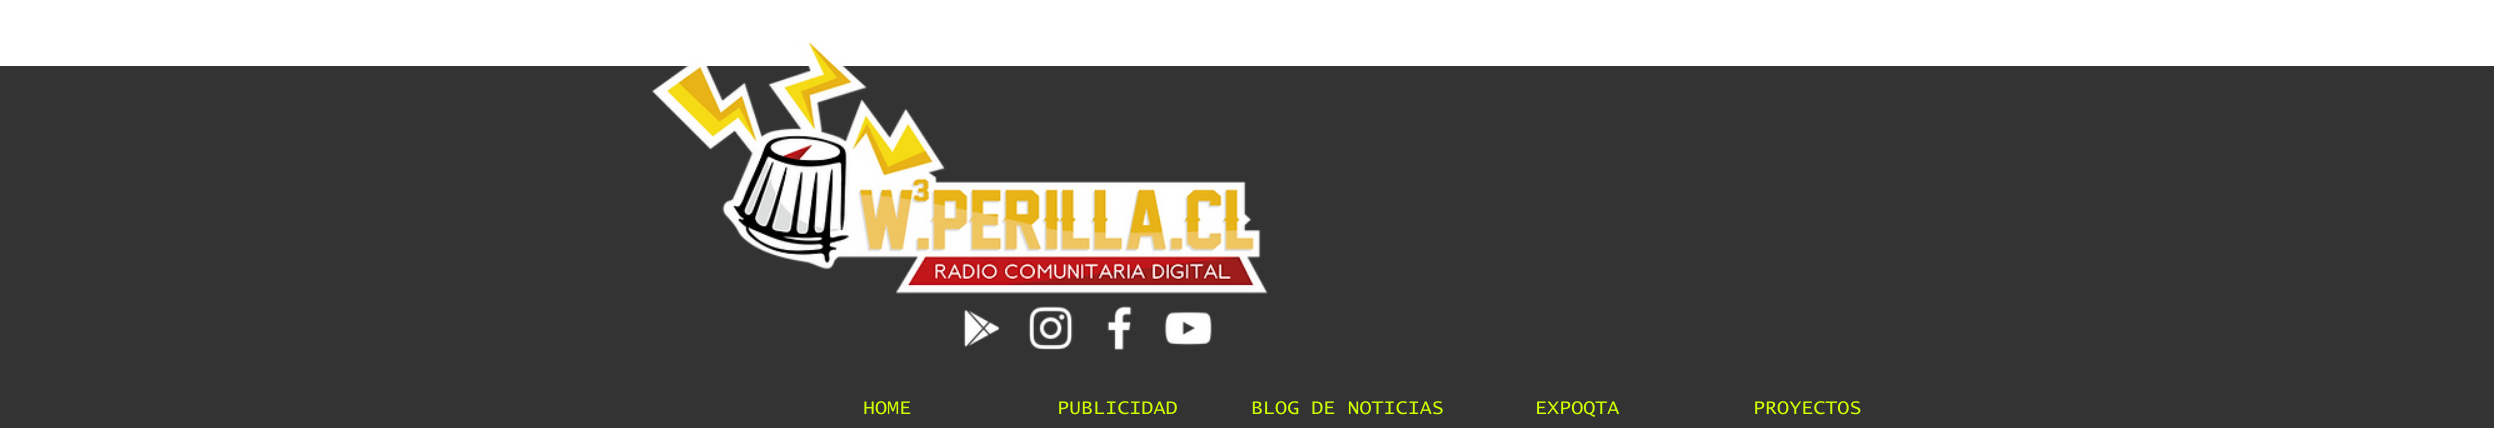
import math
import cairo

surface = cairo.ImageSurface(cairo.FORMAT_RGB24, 2494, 436)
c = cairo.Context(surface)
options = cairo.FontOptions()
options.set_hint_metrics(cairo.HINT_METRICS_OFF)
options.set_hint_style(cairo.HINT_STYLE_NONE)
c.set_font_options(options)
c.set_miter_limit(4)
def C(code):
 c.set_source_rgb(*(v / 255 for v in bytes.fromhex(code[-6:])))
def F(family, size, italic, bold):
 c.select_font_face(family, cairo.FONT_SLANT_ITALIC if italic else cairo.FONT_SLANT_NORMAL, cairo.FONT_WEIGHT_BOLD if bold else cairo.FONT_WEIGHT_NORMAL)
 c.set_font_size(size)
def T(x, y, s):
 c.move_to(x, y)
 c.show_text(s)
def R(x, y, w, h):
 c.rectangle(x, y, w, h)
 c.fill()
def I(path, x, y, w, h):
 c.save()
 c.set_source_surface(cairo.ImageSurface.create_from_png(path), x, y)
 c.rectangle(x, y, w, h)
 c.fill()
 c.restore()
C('ffffff')
c.paint()
C('333333')
R(0,66,2494,362)
I('1.png',652,41,616,253)
I('2.png',963,309,37,38)
I('3.png',1028,306,45,44)
I('4.png',1107,306,25,45)
I('5.png',1164,311,48,35)
F('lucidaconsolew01',20,0,0)
C('ccff00')
T(863,414,'HOME')
T(1057,414,'PUBLICIDAD')
T(1251,414,'BLOG DE NOTICIAS')
T(1535,414,'EXPOQTA')
T(1753,414,'PROYECTOS')
surface.write_to_png('o.png')
